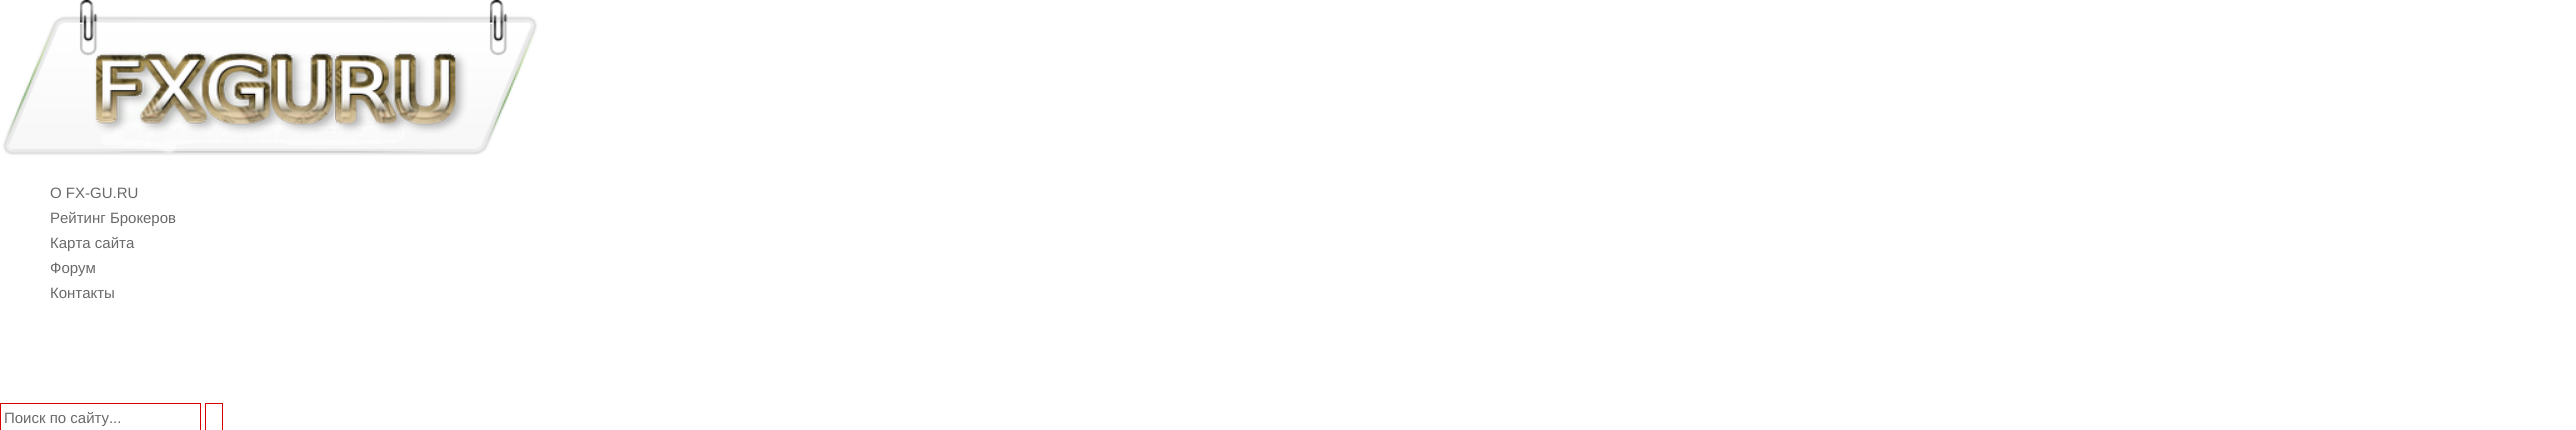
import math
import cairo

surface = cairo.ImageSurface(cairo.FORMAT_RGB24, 2576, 430)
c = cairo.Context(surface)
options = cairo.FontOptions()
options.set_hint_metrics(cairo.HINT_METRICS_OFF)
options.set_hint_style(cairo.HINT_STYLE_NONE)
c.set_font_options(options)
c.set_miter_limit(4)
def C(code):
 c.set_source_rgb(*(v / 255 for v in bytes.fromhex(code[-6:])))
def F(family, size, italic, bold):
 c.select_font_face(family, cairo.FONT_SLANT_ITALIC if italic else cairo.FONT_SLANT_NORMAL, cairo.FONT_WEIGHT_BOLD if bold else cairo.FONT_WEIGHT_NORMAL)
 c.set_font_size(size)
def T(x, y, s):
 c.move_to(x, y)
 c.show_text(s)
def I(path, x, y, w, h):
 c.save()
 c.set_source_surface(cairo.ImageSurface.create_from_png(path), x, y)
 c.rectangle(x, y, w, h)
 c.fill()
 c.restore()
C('ffffff')
c.paint()
I('1.png',2,0,536,156)
F('Liberation Sans',15,0,0)
C('696969')
T(50,198,'О FX-GU.RU')
T(50,223,'Рейтинг Брокеров')
T(50,248,'Карта сайта')
T(50,273,'Форум')
T(50,298,'Контакты')
c.rectangle(.5,403.5,200,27)
C('d90000')
c.set_line_width(1)
c.stroke()
C('696969')
T(4,423,'Поиск по сайту...')
c.rectangle(205.5,403.5,17,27)
C('d90000')
c.stroke()
surface.write_to_png('o.png')
